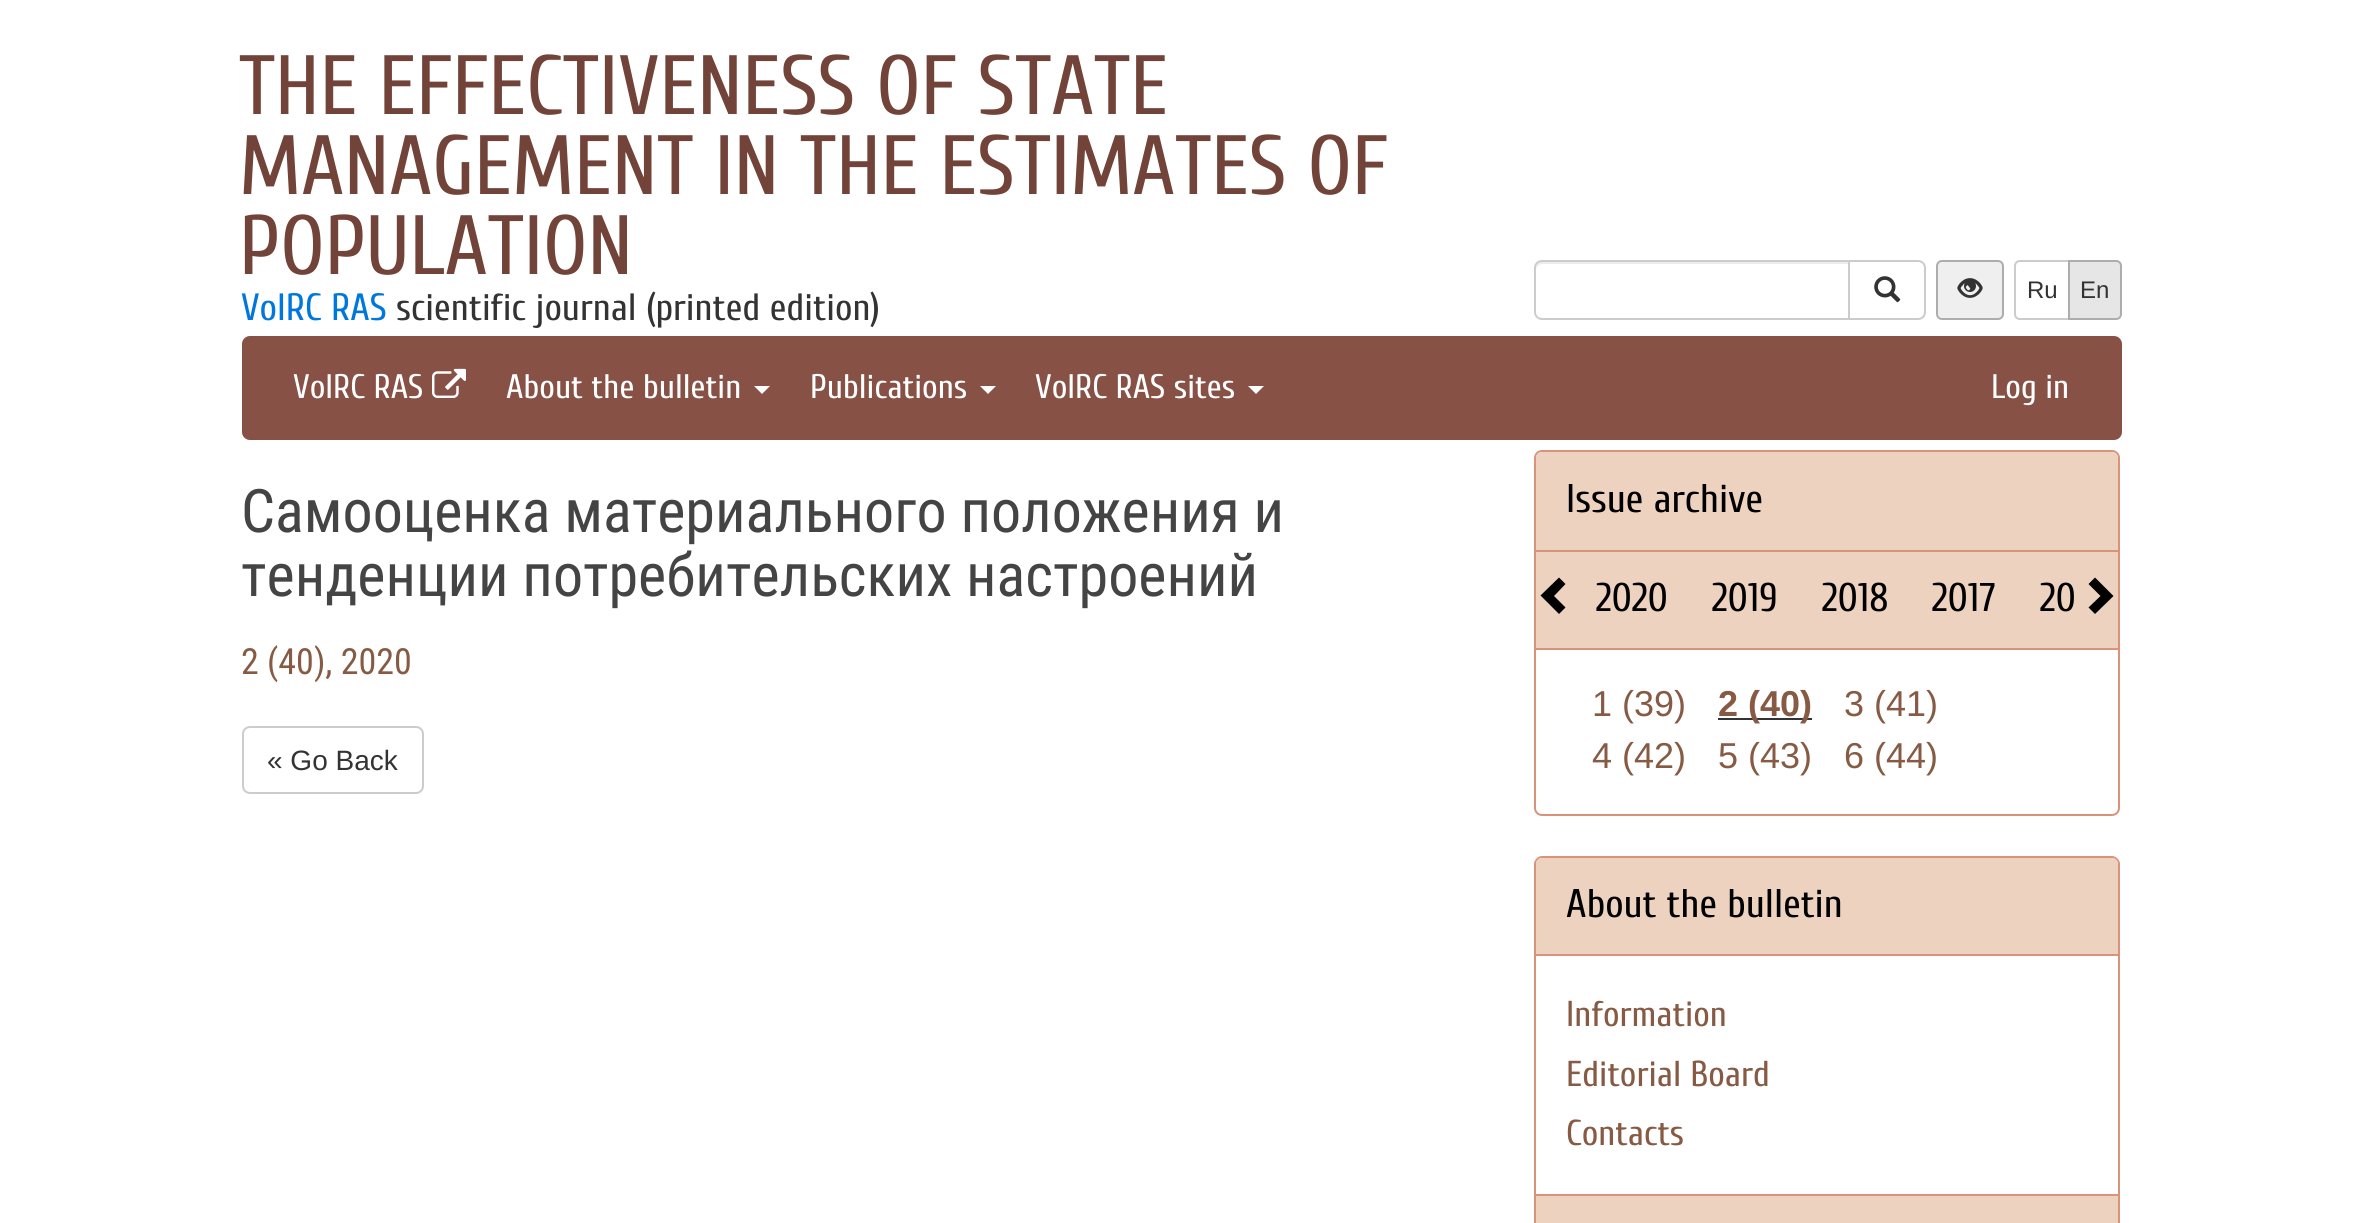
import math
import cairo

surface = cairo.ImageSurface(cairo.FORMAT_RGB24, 2362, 1223)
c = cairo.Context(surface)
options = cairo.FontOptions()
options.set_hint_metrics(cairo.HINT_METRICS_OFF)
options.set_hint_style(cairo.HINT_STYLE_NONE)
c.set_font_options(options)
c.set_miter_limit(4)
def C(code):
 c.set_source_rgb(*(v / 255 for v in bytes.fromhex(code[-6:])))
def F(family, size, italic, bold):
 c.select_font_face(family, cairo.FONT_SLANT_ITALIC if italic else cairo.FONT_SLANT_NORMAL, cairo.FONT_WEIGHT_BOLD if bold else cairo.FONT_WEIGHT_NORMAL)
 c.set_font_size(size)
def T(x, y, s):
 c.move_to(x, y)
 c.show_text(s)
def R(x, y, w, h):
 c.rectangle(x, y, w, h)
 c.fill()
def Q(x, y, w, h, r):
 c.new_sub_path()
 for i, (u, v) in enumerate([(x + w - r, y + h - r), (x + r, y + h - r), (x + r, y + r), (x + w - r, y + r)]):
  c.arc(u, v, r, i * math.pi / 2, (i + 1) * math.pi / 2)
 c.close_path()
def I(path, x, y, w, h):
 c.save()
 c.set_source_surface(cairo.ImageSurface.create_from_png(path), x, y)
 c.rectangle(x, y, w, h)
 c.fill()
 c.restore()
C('ffffff')
c.paint()
F('Cuprum',84,0,0)
C('724339')
T(239,114,'THE EFFECTIVENESS OF STATE')
T(239,194,'MANAGEMENT IN THE ESTIMATES OF')
T(239,274,'POPULATION')
F('Cuprum',38,0,0)
C('0077dd')
T(241,320,'VolRC RAS')
C('333333')
T(396,320,'scientific journal (printed edition)')
C('ececec')
c.new_path()
c.move_to(1542,264)
c.line_to(1848,264)
c.line_to(1848,262)
c.line_to(1541,262)
c.curve_to(1537,263,1536,267,1536,270)
c.curve_to(1536,267,1539,264,1542,264)
c.close_path()
c.fill()
c.new_path()
c.move_to(1542,261)
c.line_to(1849,261)
c.line_to(1849,319)
c.line_to(1542,319)
c.curve_to(1538,319,1535,316,1535,312)
c.line_to(1535,268)
c.curve_to(1535,264,1538,261,1542,261)
c.close_path()
C('cccccc')
c.stroke()
C('ffffff')
c.new_path()
c.move_to(1849,261)
c.line_to(1918,261)
c.curve_to(1922,261,1925,264,1925,268)
c.line_to(1925,312)
c.curve_to(1925,316,1922,319,1918,319)
c.line_to(1849,319)
c.close_path()
c.fill_preserve()
C('cccccc')
c.stroke()
I('1.png',1874,276,27,27)
C('efefef')
Q(1937,261,66,58,5)
c.fill_preserve()
C('adadad')
c.stroke()
I('2.png',1957,278,26,20)
c.new_path()
c.move_to(2020,261)
c.line_to(2069,261)
c.line_to(2069,319)
c.line_to(2020,319)
c.curve_to(2017,319,2015,317,2015,314)
c.line_to(2015,266)
c.curve_to(2015,263,2017,261,2020,261)
c.close_path()
C('cccccc')
c.stroke()
F('Liberation Sans',24,0,0)
C('333333')
T(2027,298,'Ru')
C('e6e6e6')
c.new_path()
c.move_to(2069,261)
c.line_to(2116,261)
c.curve_to(2119,261,2121,263,2121,266)
c.line_to(2121,314)
c.curve_to(2121,317,2119,319,2116,319)
c.line_to(2069,319)
c.close_path()
c.fill_preserve()
C('adadad')
c.stroke()
C('333333')
T(2080,298,'En')
C('875146')
Q(243,337,1878,102,7)
c.fill_preserve()
c.stroke()
F('Cuprum',34,0,0)
C('ffffff')
T(293,398,'VolRC RAS')
I('3.png',432,368,34,30)
T(506,398,'About the bulletin')
c.new_path()
c.move_to(754,386)
c.line_to(770,386)
c.line_to(762,394)
c.close_path()
c.fill()
T(810,398,'Publications')
c.new_path()
c.move_to(980,386)
c.line_to(996,386)
c.line_to(988,394)
c.close_path()
c.fill()
T(1035,398,'VolRC RAS sites')
c.new_path()
c.move_to(1248,386)
c.line_to(1264,386)
c.line_to(1256,394)
c.close_path()
c.fill()
T(1991,398,'Log in')
F('Roboto Condensed',60,0,0)
C('444444')
T(241,532,'Самооценка материального положения и')
T(241,596,'тенденции потребительских настроений')
F('Roboto Condensed',36,0,0)
C('875a44')
T(241,674,'2 (40), 2020')
Q(243,727,180,66,7)
C('cccccc')
c.stroke()
F('Liberation Sans',28,0,0)
C('333333')
T(267,770,'« Go Back')
Q(1535,451,584,364,7)
C('d8937a')
c.stroke()
C('ecd2bf')
c.new_path()
c.move_to(1542,452)
c.line_to(2112,452)
c.curve_to(2115.5,452,2118,454.5,2118,458)
c.line_to(2118,552)
c.line_to(1536,552)
c.line_to(1536,458)
c.curve_to(1536,454.5,1538.5,452,1542,452)
c.close_path()
c.fill()
C('d8937a')
R(1536,550,582,2)
F('Cuprum',40,0,0)
C('000000')
T(1566,512,'Issue archive')
C('ecd2bf')
R(1536,552,582,96)
C('000000')
c.new_path()
c.move_to(1565.5,584)
c.line_to(1554,596)
c.line_to(1565.5,607.5)
c.line_to(1559,614)
c.line_to(1540.5,595.5)
c.line_to(1559,577.5)
c.close_path()
c.fill()
C('d8937a')
R(1536,648,582,2)
C('000000')
T(1596,611,'2020')
T(1712,611,'2019')
T(1822,611,'2018')
T(1932,611,'2017')
T(2040,611,'20')
F('Liberation Sans',36,0,0)
C('875a44')
T(1592,716,'1 (39)')
C('333333')
R(1718,718,94,2)
F('Liberation Sans',36,0,1)
C('875a44')
T(1718,716,'2 (40)')
F('Liberation Sans',36,0,0)
T(1844,716,'3 (41)')
T(1592,768,'4 (42)')
T(1718,768,'5 (43)')
T(1844,768,'6 (44)')
C('000000')
c.new_path()
c.move_to(2113.5,596)
c.line_to(2095,614)
c.line_to(2088.5,607.5)
c.line_to(2100.5,596)
c.line_to(2088.5,584)
c.line_to(2095,577.5)
c.close_path()
c.fill()
C('d8937a')
c.set_fill_rule(cairo.FILL_RULE_EVEN_ODD)
c.new_path()
c.move_to(1542,856)
c.line_to(2112,856)
c.curve_to(2116,856,2120,860,2120,864)
c.line_to(2120,1194)
c.line_to(1534,1194)
c.line_to(1534,864)
c.curve_to(1534,860,1538,856,1542,856)
c.close_path()
c.move_to(1542,858)
c.line_to(2112,858)
c.curve_to(2115,858,2118,861,2118,864)
c.line_to(2118,1194)
c.line_to(1536,1194)
c.line_to(1536,864)
c.curve_to(1536,861,1539,858,1542,858)
c.close_path()
c.fill()
C('ecd2bf')
c.new_path()
c.move_to(1542,858)
c.line_to(2112,858)
c.curve_to(2115.5,858,2118,860.5,2118,864)
c.line_to(2118,956)
c.line_to(1536,956)
c.line_to(1536,864)
c.curve_to(1536,860.5,1538.5,858,1542,858)
c.close_path()
c.fill()
C('d8937a')
R(1536,954,582,2)
F('Cuprum',40,0,0)
C('000000')
T(1566,917,'About the bulletin')
F('Cuprum',36,0,0)
C('875a44')
T(1566,1026,'Information')
T(1566,1086,'Editorial Board')
T(1566,1145,'Contacts')
c.rectangle(1535,1195,584,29)
C('d8937a')
c.stroke()
C('ecd2bf')
R(1536,1196,582,27)
surface.write_to_png('o.png')
